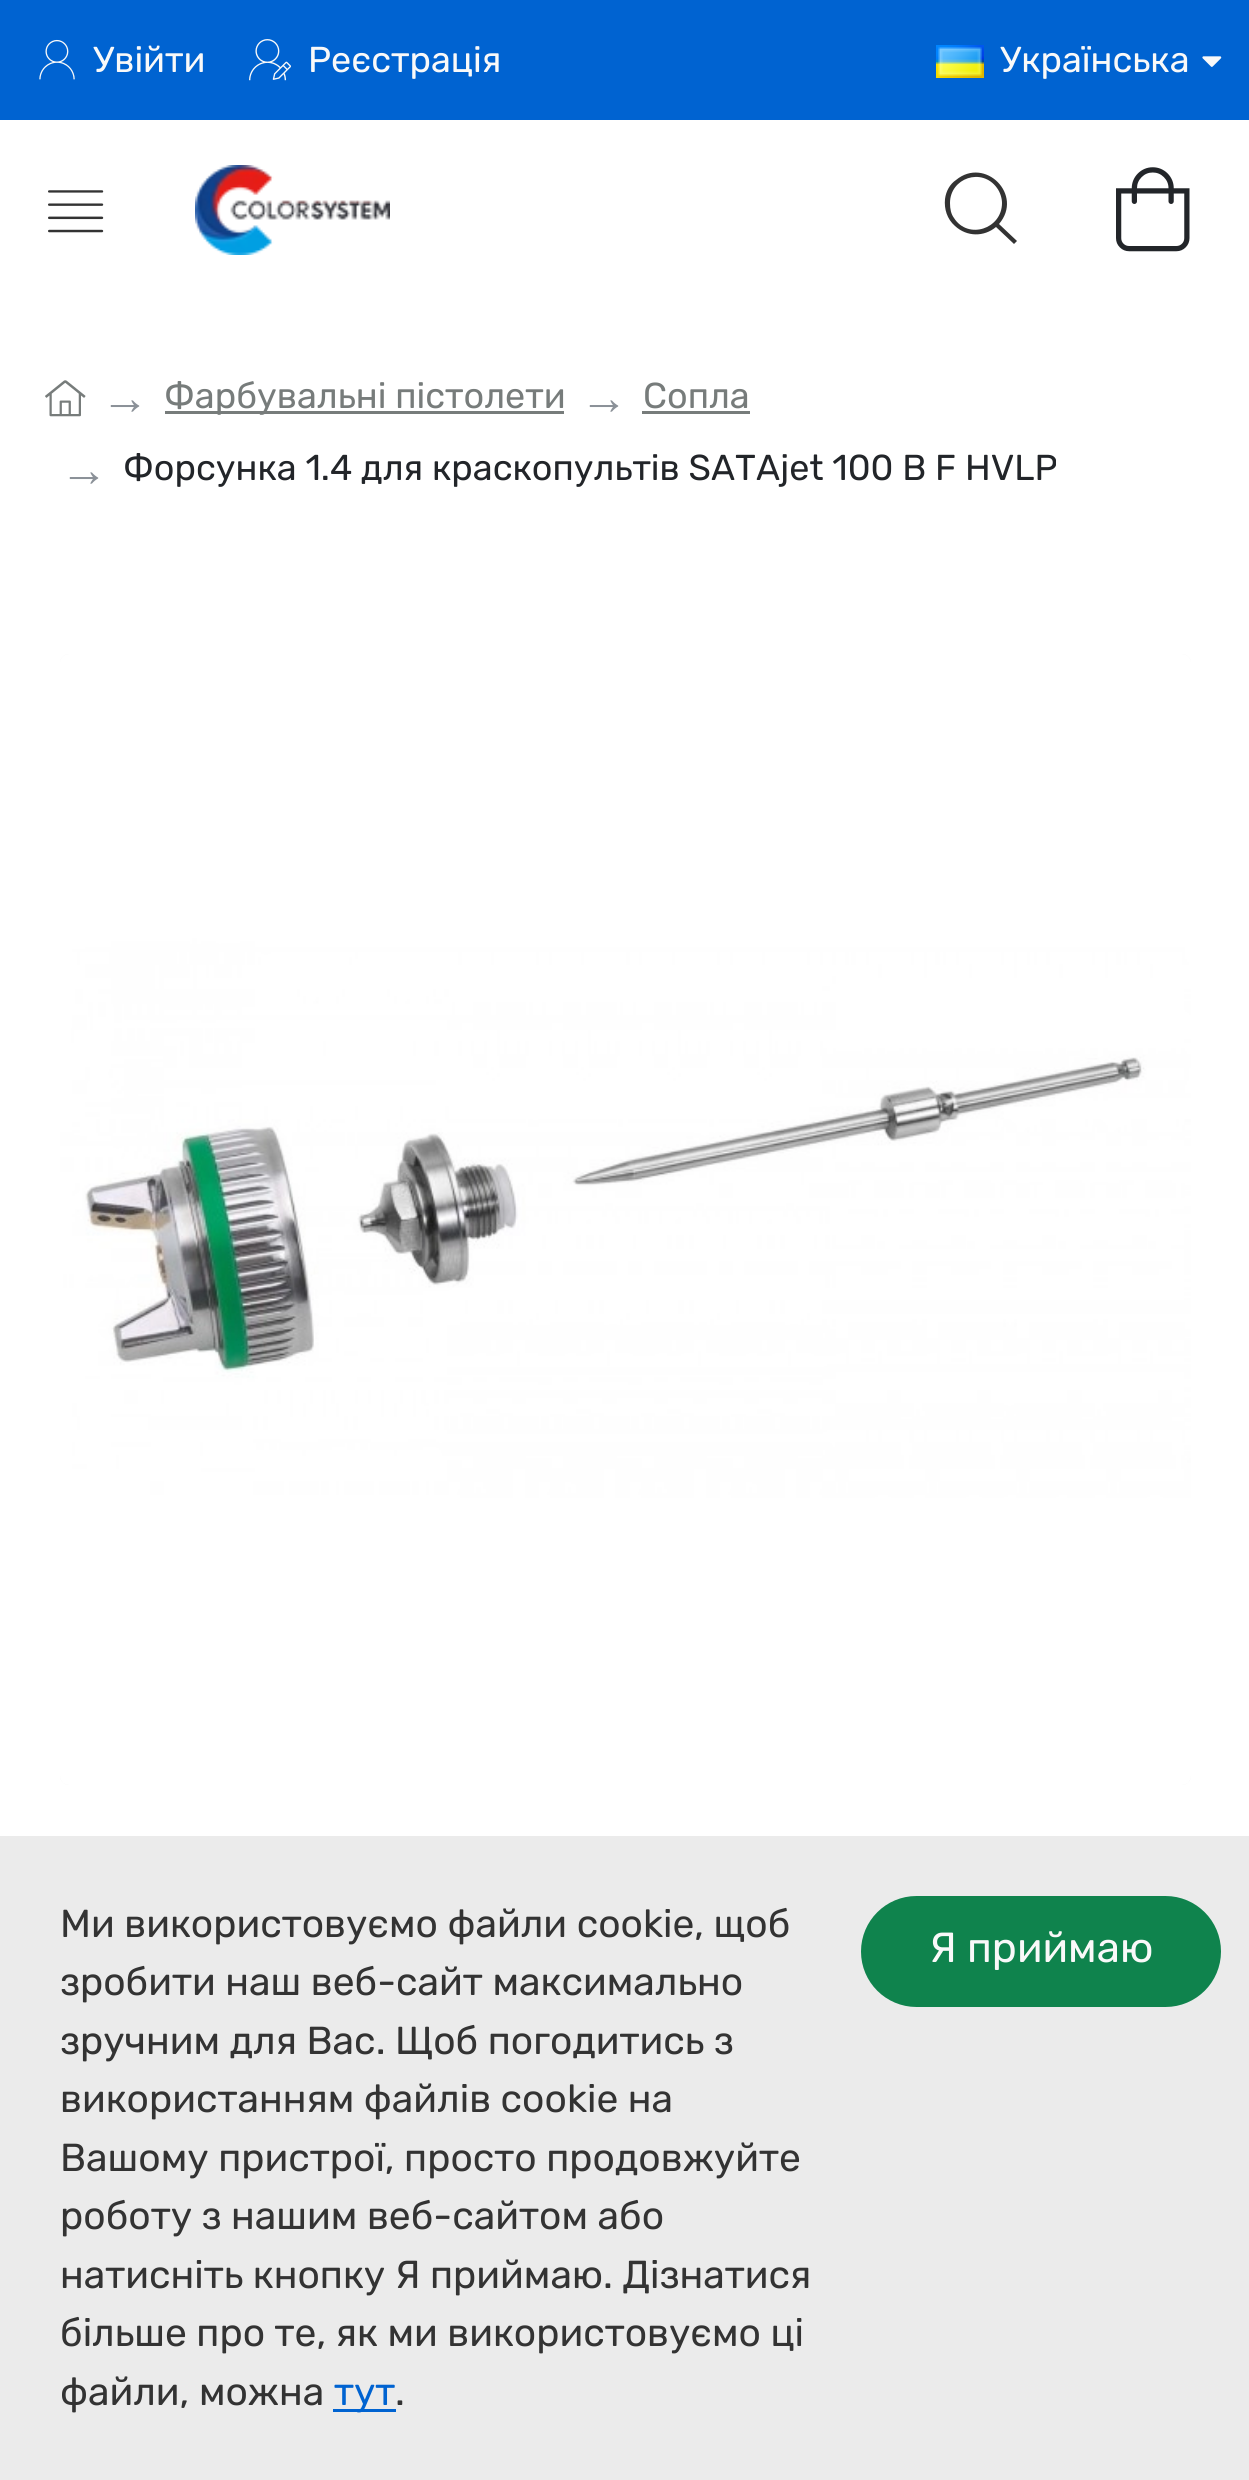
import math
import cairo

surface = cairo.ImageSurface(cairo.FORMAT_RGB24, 1249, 2480)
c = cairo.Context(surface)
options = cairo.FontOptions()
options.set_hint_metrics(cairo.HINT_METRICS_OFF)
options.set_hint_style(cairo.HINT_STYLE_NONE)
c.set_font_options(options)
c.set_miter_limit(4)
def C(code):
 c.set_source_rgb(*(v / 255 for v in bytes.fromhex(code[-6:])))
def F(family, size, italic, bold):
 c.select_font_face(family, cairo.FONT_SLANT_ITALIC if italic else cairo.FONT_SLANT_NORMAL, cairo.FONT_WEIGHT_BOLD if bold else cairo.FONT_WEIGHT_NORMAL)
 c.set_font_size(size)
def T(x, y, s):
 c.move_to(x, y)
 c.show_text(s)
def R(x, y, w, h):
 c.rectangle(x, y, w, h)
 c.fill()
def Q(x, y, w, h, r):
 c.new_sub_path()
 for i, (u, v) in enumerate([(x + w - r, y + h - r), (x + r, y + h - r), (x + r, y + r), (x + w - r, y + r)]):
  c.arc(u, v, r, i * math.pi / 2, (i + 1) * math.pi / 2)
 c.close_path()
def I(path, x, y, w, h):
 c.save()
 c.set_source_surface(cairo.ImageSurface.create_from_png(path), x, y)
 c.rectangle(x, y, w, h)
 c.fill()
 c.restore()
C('ffffff')
c.paint()
C('0063d1')
R(0,0,1249,120)
I('1.png',39,39,36,41)
F('Rubik',36,0,0)
C('f9f9f9')
T(93,72,'Увійти')
I('2.png',249,39,42,42)
T(308,72,'Реєстрація')
I('3.png',936,45,48,33)
T(1000,72,'Українська')
I('4.png',1202,56,20,11)
I('5.png',195,165,195,90)
I('6.png',48,190,56,43)
C('333333')
c.new_path()
c.move_to(1017,241)
c.line_to(999,224)
c.curve_to(1024,195,985,156,956,180)
c.curve_to(950,184,946,191,945,199)
c.curve_to(944,209,947,219,955,226)
c.curve_to(967,237,984,237,996,227)
c.line_to(1014,244)
c.close_path()
c.move_to(950,203)
c.curve_to(950,178,982,167,997,188)
c.curve_to(1000,192,1002,198,1002,203)
c.curve_to(1002,229,968,240,954,218)
c.curve_to(951,214,950,209,950,203)
c.close_path()
c.fill()
I('7.png',1116,167,74,85)
I('8.png',45,380,41,37)
F('Liberation Serif',48,0,0)
C('8b9198')
T(101,414,'→')
C('777c7b')
R(165,411,399,3)
F('Rubik',36,0,0)
T(164,408,'Фарбувальні пістолети')
F('Liberation Serif',48,0,0)
C('8b9198')
T(580,414,'→')
F('Rubik',36,0,0)
C('777c7b')
T(643,408,'Сопла')
R(642,411,108,3)
F('Liberation Serif',48,0,0)
C('8b9198')
T(60,486,'→')
F('Rubik',36,0,0)
C('222529')
T(123,480,'Форсунка 1.4 для краскопультів SATAjet 100 B F HVLP')
C('f9f9f9')
Q(60,654,1131,1131,9)
c.fill()
I('9.png',60,654,1131,1131)
C('ebebeb')
R(0,1836,1249,644)
F('Rubik',39,0,0)
C('333333')
T(60,1937,'Ми використовуємо файли cookie, щоб')
T(60,1995,'зробити наш веб-сайт максимально')
T(60,2054,'зручним для Вас. Щоб погодитись з')
T(60,2112,'використанням файлів cookie на')
T(60,2171,'Вашому пристрої, просто продовжуйте')
T(60,2229,'роботу з нашим веб-сайтом або')
T(60,2288,'натисніть кнопку Я приймаю. Дізнатися')
T(60,2346,'більше про те, як ми використовуємо ці')
T(60,2405,'файли, можна')
C('0063d1')
R(333,2409,63,3)
T(334,2405,'тут')
C('333333')
T(395,2405,'.')
C('0f834d')
Q(861,1896,360,111,55.5)
c.fill()
F('Rubik',42,0,0)
C('f9f9f9')
T(929,1962,'Я приймаю')
surface.write_to_png('o.png')
